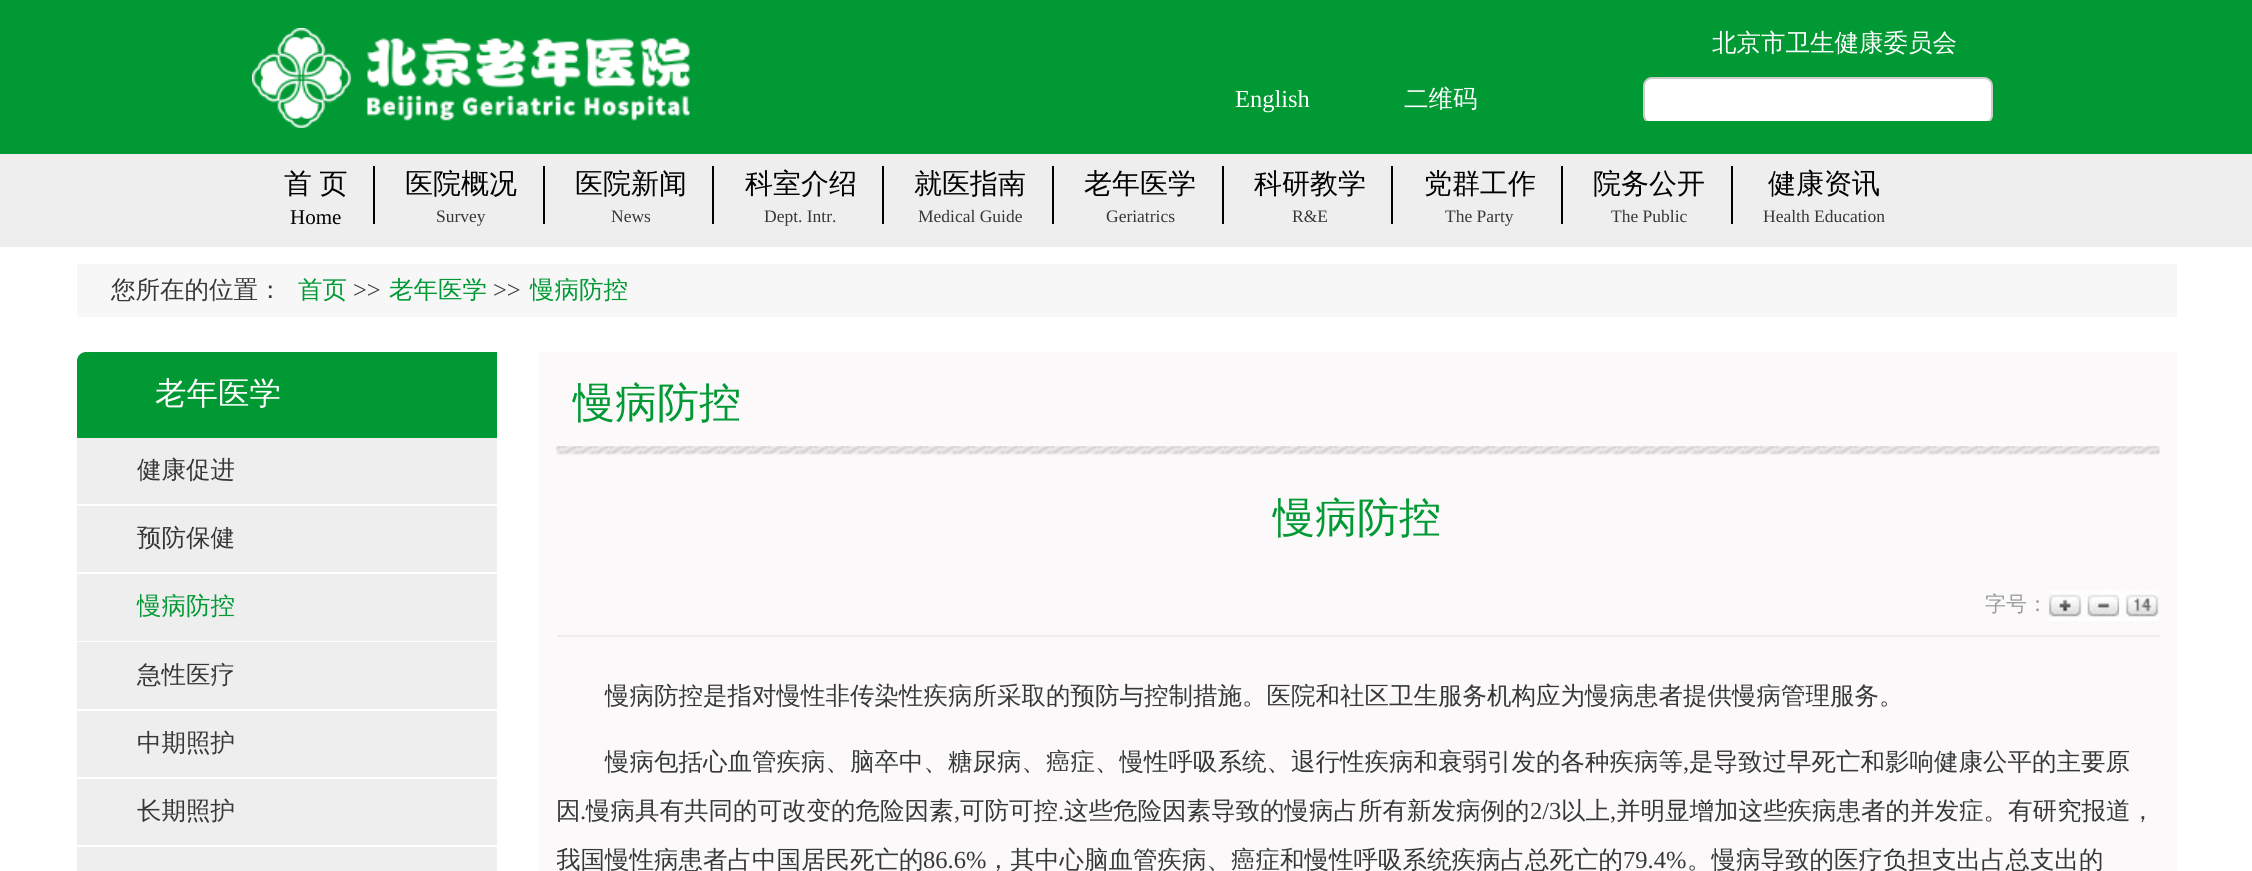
import math
import cairo

surface = cairo.ImageSurface(cairo.FORMAT_RGB24, 2252, 871)
c = cairo.Context(surface)
options = cairo.FontOptions()
options.set_hint_metrics(cairo.HINT_METRICS_OFF)
options.set_hint_style(cairo.HINT_STYLE_NONE)
c.set_font_options(options)
c.set_miter_limit(4)
def C(code):
 c.set_source_rgb(*(v / 255 for v in bytes.fromhex(code[-6:])))
def F(family, size, italic, bold):
 c.select_font_face(family, cairo.FONT_SLANT_ITALIC if italic else cairo.FONT_SLANT_NORMAL, cairo.FONT_WEIGHT_BOLD if bold else cairo.FONT_WEIGHT_NORMAL)
 c.set_font_size(size)
def T(x, y, s):
 c.move_to(x, y)
 c.show_text(s)
def L(x, y, s, letter, word):
 c.move_to(x, y)
 for ch in s:
  c.show_text(ch)
  c.rel_move_to(letter + word * (ch == ' '), 0)
def R(x, y, w, h):
 c.rectangle(x, y, w, h)
 c.fill()
def Q(x, y, w, h, r):
 c.new_sub_path()
 for i, (u, v) in enumerate([(x + w - r, y + h - r), (x + r, y + h - r), (x + r, y + r), (x + w - r, y + r)]):
  c.arc(u, v, r, i * math.pi / 2, (i + 1) * math.pi / 2)
 c.close_path()
def I(path, x, y, w, h):
 c.save()
 c.set_source_surface(cairo.ImageSurface.create_from_png(path), x, y)
 c.rectangle(x, y, w, h)
 c.fill()
 c.restore()
C('ffffff')
c.paint()
C('009933')
R(0,0,2252,154)
I('1.png',252,28,438,100)
F('WenQuanYi Zen Hei Medium',24.5,0,0)
C('ffffff')
T(1712,51,'北京市卫生健康委员会')
F('Liberation Serif',24.5,0,0)
T(1235,107,'English')
F('WenQuanYi Zen Hei Medium',24.5,0,0)
T(1404,107,'二维码')
c.save()
c.rectangle(690,77,1312,44)
c.clip()
Q(1644,78,348,45,8)
c.fill_preserve()
C('cccccc')
c.stroke()
c.restore()
C('eeeeee')
R(0,154,2252,93)
F('WenQuanYi Zen Hei Medium',28,0,0)
C('000000')
L(284,193,'首 页',0,-1)
F('Liberation Serif',21,0,0)
T(290,224,'Home')
R(373,166,2,58)
F('WenQuanYi Zen Hei Medium',28,0,0)
T(405,193,'医院概况')
F('Liberation Serif',17.5,0,0)
C('373737')
T(436,222,'Survey')
C('000000')
R(543,166,2,58)
F('WenQuanYi Zen Hei Medium',28,0,0)
T(575,193,'医院新闻')
F('Liberation Serif',17.5,0,0)
C('373737')
T(611,222,'News')
C('000000')
R(712,166,2,58)
F('WenQuanYi Zen Hei Medium',28,0,0)
T(745,193,'科室介绍')
F('Liberation Serif',17.5,0,0)
C('373737')
T(764,222,'Dept. Intr.')
C('000000')
R(882,166,2,58)
F('WenQuanYi Zen Hei Medium',28,0,0)
T(914,193,'就医指南')
F('Liberation Serif',17.5,0,0)
C('373737')
T(918,222,'Medical Guide')
C('000000')
R(1052,166,2,58)
F('WenQuanYi Zen Hei Medium',28,0,0)
T(1084,193,'老年医学')
F('Liberation Serif',17.5,0,0)
C('373737')
T(1106,222,'Geriatrics')
C('000000')
R(1222,166,2,58)
F('WenQuanYi Zen Hei Medium',28,0,0)
T(1254,193,'科研教学')
F('Liberation Serif',17.5,0,0)
C('373737')
T(1292,222,'R&E')
C('000000')
R(1391,166,2,58)
F('WenQuanYi Zen Hei Medium',28,0,0)
T(1424,193,'党群工作')
F('Liberation Serif',17.5,0,0)
C('373737')
T(1445,222,'The Party')
C('000000')
R(1561,166,2,58)
F('WenQuanYi Zen Hei Medium',28,0,0)
T(1593,193,'院务公开')
F('Liberation Serif',17.5,0,0)
C('373737')
T(1611,222,'The Public')
C('000000')
R(1731,166,2,58)
F('WenQuanYi Zen Hei Medium',28,0,0)
T(1768,193,'健康资讯')
F('Liberation Serif',17.5,0,0)
C('373737')
T(1763,222,'Health Education')
C('f7f7f7')
R(77,264,2100,53)
F('WenQuanYi Zen Hei Medium',24.5,0,0)
C('373737')
T(111,298,'您所在的位置：')
C('009933')
T(298,298,'首页')
F('Liberation Serif',24.5,0,0)
C('373737')
T(353,298,'>>')
F('WenQuanYi Zen Hei Medium',24.5,0,0)
C('009933')
T(389,298,'老年医学')
F('Liberation Serif',24.5,0,0)
C('373737')
T(493,298,'>>')
F('WenQuanYi Zen Hei Medium',24.5,0,0)
C('009933')
T(530,298,'慢病防控')
c.new_path()
c.move_to(86,352)
c.line_to(497,352)
c.line_to(497,438)
c.line_to(77,438)
c.line_to(77,361)
c.curve_to(77,356,81,352,86,352)
c.close_path()
c.fill()
F('WenQuanYi Zen Hei Medium',31.5,0,0)
C('ffffff')
T(155,404,'老年医学')
C('eeeeee')
R(77,438,420,66)
F('WenQuanYi Zen Hei Medium',24.5,0,0)
C('373737')
T(137,478,'健康促进')
C('eeeeee')
R(77,506,420,66)
C('373737')
T(137,546,'预防保健')
C('eeeeee')
R(77,574,420,67)
C('009933')
T(137,614,'慢病防控')
C('eeeeee')
R(77,642,420,67)
C('373737')
T(137,683,'急性医疗')
C('eeeeee')
R(77,711,420,66)
C('373737')
T(137,751,'中期照护')
C('eeeeee')
R(77,779,420,66)
C('373737')
T(137,819,'长期照护')
C('eeeeee')
R(77,847,420,24)
C('fbf9fa')
R(539,352,1638,519)
I('2.png',556,446,1604,9)
F('WenQuanYi Zen Hei Medium',42,0,0)
C('009933')
T(573,417,'慢病防控')
T(1273,532,'慢病防控')
C('ededed')
R(557,635,1603,2)
F('WenQuanYi Zen Hei Medium',21,0,0)
C('999999')
T(1985,611,'字号：')
I('3.png',2049,590,35,31)
I('4.png',2084,590,36,31)
I('5.png',2119,590,40,31)
F('WenQuanYi Zen Hei Medium',24.5,0,0)
C('373737')
T(605,704,'慢病防控是指对慢性非传染性疾病所采取的预防与控制措施。医院和社区卫生服务机构应为慢病患者提供慢病管理服务。')
T(605,770,'慢病包括心血管疾病、脑卒中、糖尿病、癌症、慢性呼吸系统、退行性疾病和衰弱引发的各种疾病等')
F('Liberation Serif',24.5,0,0)
T(1683,770,',')
F('WenQuanYi Zen Hei Medium',24.5,0,0)
T(1689,770,'是导致过早死亡和影响健康公平的主要原')
T(556,819,'因')
F('Liberation Serif',24.5,0,0)
T(580,819,'.')
F('WenQuanYi Zen Hei Medium',24.5,0,0)
T(586,819,'慢病具有共同的可改变的危险因素')
F('Liberation Serif',24.5,0,0)
T(954,819,',')
F('WenQuanYi Zen Hei Medium',24.5,0,0)
T(960,819,'可防可控')
F('Liberation Serif',24.5,0,0)
T(1058,819,'.')
F('WenQuanYi Zen Hei Medium',24.5,0,0)
T(1064,819,'这些危险因素导致的慢病占所有新发病例的')
F('Liberation Serif',24.5,0,0)
T(1530,819,'2/3')
F('WenQuanYi Zen Hei Medium',24.5,0,0)
T(1561,819,'以上')
F('Liberation Serif',24.5,0,0)
T(1610,819,',')
F('WenQuanYi Zen Hei Medium',24.5,0,0)
T(1616,819,'并明显增加这些疾病患者的并发症。有研究报道，')
c.save()
c.rectangle(557,672,1603,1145)
c.clip()
T(556,868,'我国慢性病患者占中国居民死亡的')
c.restore()
F('Liberation Serif',24.5,0,0)
T(923,868,'86.6%')
F('WenQuanYi Zen Hei Medium',24.5,0,0)
T(986,868,'，其中心脑血管疾病、癌症和慢性呼吸系统疾病占总死亡的')
F('Liberation Serif',24.5,0,0)
T(1623,868,'79.4%')
F('WenQuanYi Zen Hei Medium',24.5,0,0)
T(1687,868,'。慢病导致的医疗负担支出占总支出的')
surface.write_to_png('o.png')
